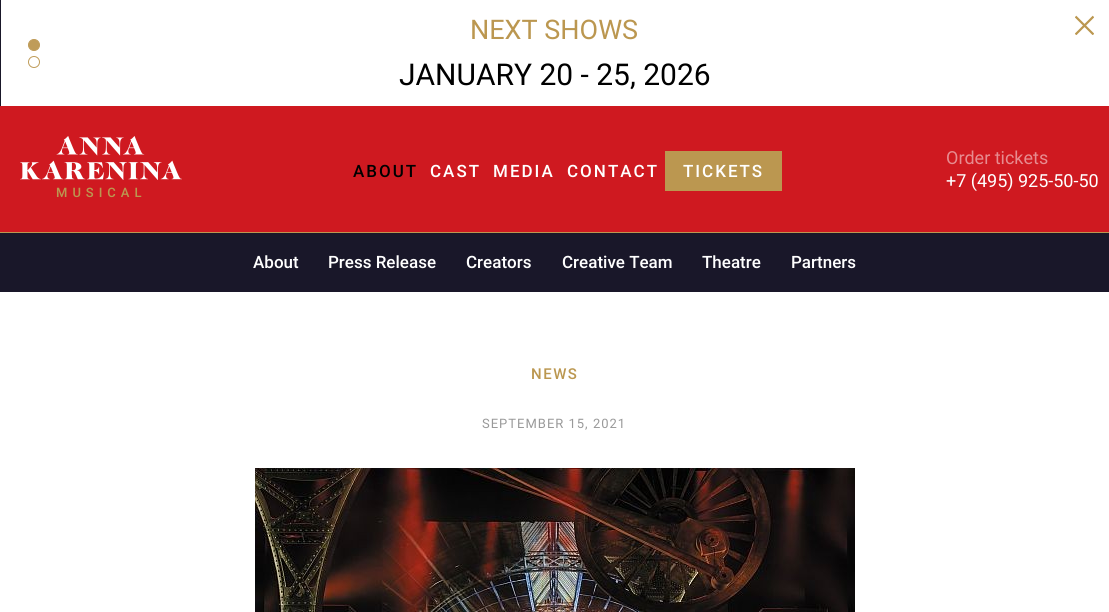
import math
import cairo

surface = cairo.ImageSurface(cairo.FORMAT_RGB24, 1109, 612)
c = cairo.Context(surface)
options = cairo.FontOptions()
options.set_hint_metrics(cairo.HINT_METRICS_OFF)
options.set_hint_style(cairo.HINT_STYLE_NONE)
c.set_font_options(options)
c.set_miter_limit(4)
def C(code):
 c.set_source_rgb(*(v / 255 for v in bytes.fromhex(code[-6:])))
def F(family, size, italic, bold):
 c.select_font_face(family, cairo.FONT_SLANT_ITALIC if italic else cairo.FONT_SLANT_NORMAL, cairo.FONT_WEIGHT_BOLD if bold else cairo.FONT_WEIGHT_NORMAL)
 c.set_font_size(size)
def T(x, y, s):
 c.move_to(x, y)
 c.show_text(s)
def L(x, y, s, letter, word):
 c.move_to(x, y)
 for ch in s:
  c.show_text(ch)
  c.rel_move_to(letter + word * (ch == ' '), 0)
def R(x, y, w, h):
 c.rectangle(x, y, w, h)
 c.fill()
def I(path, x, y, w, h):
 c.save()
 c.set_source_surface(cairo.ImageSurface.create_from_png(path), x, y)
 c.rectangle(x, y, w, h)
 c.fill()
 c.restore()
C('191729')
c.paint()
C('ffffff')
R(1,0,1108,106)
C('bf9c59')
c.arc(34,45,5.5,0,2 * math.pi)
c.fill_preserve()
c.set_line_width(1)
c.stroke()
c.arc(34,62,5.5,0,2 * math.pi)
c.stroke()
F('Roboto',27,0,0)
C('bb9750')
T(470,39,'NEXT SHOWS')
F('Roboto',30,0,0)
C('000000')
T(399,85,'JANUARY 20 - 25, 2026')
I('1.png',1075,15,19,20)
C('cf1920')
R(0,106,1109,126)
C('bb9750')
R(0,232,1109,1)
I('2.png',20,136,162,44)
F('Roboto Medium',17,0,0)
C('000000')
L(353,177,'ABOUT',2,0)
C('ffffff')
L(430,177,'CAST',2,0)
L(493,177,'MEDIA',2,0)
L(567,177,'CONTACT',2,0)
C('bb9750')
R(665,151,117,40)
C('ffffff')
L(683,177,'TICKETS',2,0)
F('Roboto',18,0,0)
C('e78c90')
T(946,164,'Order tickets')
C('ffffff')
T(946,187,'+7 (495) 925-50-50')
F('Roboto Medium',13,0,0)
C('bb9750')
L(56,197,'MUSICAL',5,0)
F('Roboto Medium',17,0,0)
C('ffffff')
T(253,268,'About')
T(328,268,'Press Release')
T(466,268,'Creators')
T(562,268,'Creative Team')
T(702,268,'Theatre')
T(791,268,'Partners')
R(0,292,1109,320)
F('Roboto Medium',15,0,0)
C('bb9750')
L(531,379,'NEWS',1.5,0)
F('Roboto',13,0,0)
C('999999')
L(482,428,'SEPTEMBER 15, 2021',1,0)
I('3.png',255,468,600,144)
surface.write_to_png('o.png')
